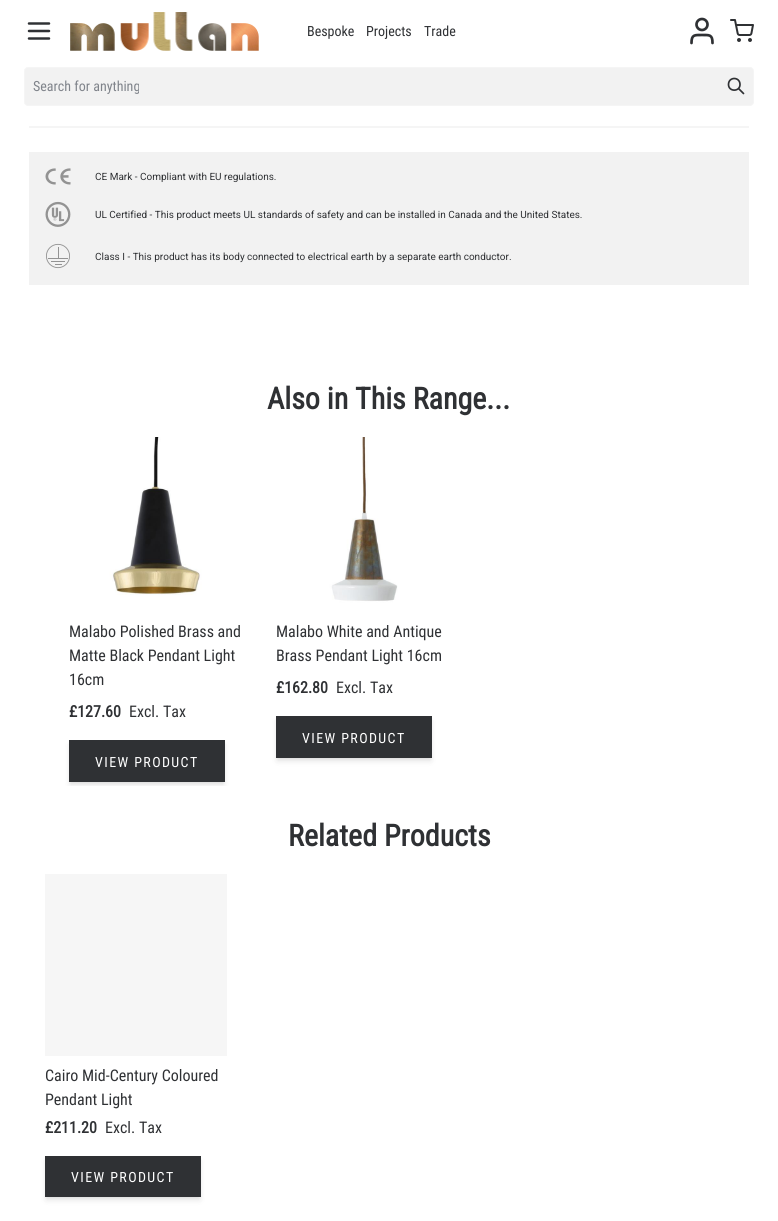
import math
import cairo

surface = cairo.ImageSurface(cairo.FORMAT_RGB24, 778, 1221)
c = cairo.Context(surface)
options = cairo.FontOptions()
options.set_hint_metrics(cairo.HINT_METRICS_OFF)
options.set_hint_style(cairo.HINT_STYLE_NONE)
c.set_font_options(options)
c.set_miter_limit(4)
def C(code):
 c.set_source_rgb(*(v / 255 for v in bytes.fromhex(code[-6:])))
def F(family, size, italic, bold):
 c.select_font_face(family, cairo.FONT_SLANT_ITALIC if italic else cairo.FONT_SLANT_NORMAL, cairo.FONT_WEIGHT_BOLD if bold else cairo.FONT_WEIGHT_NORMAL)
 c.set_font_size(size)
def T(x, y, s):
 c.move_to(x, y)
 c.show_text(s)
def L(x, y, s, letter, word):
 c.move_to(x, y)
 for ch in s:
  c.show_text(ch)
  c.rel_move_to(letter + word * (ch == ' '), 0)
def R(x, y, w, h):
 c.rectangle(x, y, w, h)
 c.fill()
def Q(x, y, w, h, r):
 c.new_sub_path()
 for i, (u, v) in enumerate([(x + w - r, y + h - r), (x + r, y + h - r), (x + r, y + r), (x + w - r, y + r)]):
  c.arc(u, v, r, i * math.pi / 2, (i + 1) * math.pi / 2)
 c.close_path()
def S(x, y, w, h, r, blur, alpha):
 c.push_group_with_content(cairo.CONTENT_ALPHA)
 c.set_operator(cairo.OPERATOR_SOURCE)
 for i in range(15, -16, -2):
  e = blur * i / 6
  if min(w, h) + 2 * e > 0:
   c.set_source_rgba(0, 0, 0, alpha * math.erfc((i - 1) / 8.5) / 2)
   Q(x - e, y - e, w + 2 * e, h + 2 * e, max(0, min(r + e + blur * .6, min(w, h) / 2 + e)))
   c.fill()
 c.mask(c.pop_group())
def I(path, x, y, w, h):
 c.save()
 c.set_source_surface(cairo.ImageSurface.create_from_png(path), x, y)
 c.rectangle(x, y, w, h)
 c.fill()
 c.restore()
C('ffffff')
c.paint()
c.new_path()
c.move_to(29,23.5)
c.line_to(49,23.5)
c.move_to(29,31)
c.line_to(49,31)
c.move_to(29,38.5)
c.line_to(49,38.5)
C('2f3134')
c.set_line_width(2.5)
c.set_line_cap(cairo.LINE_CAP_ROUND)
c.set_line_join(cairo.LINE_JOIN_ROUND)
c.stroke()
I('1.png',70,12,189,39)
F('Roboto Condensed',14,0,0)
T(307,36,'Bespoke')
T(366,36,'Projects')
T(424,36,'Trade')
c.new_path()
c.move_to(712.5,43)
c.curve_to(712.5,34.5,709.5,35,702,35)
c.curve_to(694.5,35,691.5,34.5,691.5,43)
c.set_line_width(2.7)
c.stroke()
c.arc(702,24.5,5.5,0,2 * math.pi)
c.set_line_cap(cairo.LINE_CAP_BUTT)
c.set_line_join(cairo.LINE_JOIN_MITER)
c.stroke()
I('2.png',730,19,24,23)
C('f2f2f2')
Q(24.5,67.5,729,38,3.5)
c.fill_preserve()
C('f5f5f5')
c.set_line_width(1)
c.stroke()
C('80848b')
T(33,91,'Search for anything')
c.new_path()
c.move_to(743.5,93.5)
c.line_to(738.5,88.5)
c.move_to(740,84.5)
c.curve_to(740,92,728.5,92,728.5,84.5)
c.curve_to(728.5,76.5,740,76.5,740,84.5)
c.close_path()
C('2f3134')
c.set_line_width(1.7)
c.set_line_cap(cairo.LINE_CAP_ROUND)
c.set_line_join(cairo.LINE_JOIN_ROUND)
c.stroke()
C('f5f5f5')
R(29,126,720,2)
C('f2f2f2')
R(29,152,720,133)
I('3.png',45,168,26,17)
F('Roboto',10,0,0)
C('2f3134')
T(95,180,'CE Mark - Compliant with EU regulations.')
I('4.png',45,201,26,26)
T(95,218,'UL Certified - This product meets UL standards of safety and can be installed in Canada and the United States.')
I('5.png',46,243,24,26)
T(95,260,'Class I - This product has its body connected to electrical earth by a separate earth conductor.')
F('Roboto Condensed',30,0,1)
T(267,409,'Also in This Range...')
I('6.png',69,437,175,175)
F('Roboto Condensed',16,0,0)
T(69,637,'Malabo Polished Brass and')
T(69,661,'Matte Black Pendant Light')
T(69,685,'16cm')
F('Roboto Condensed',16,0,1)
T(69,717,'£127.60')
F('Roboto Condensed',16,0,0)
T(129,717,'Excl. Tax')
C('000000')
S(71,744,152,38,0,2,.1)
c.save()
c.rectangle(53,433,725,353)
c.clip()
S(70,745,154,40,0,3,.1)
c.restore()
C('2f3134')
R(69,740,156,42)
F('Roboto Condensed',14,0,0)
C('ffffff')
L(95,767,'VIEW PRODUCT',1.4,0)
I('7.png',276,437,175,175)
F('Roboto Condensed',16,0,0)
C('2f3134')
T(276,637,'Malabo White and Antique')
T(276,661,'Brass Pendant Light 16cm')
F('Roboto Condensed',16,0,1)
T(276,693,'£162.80')
F('Roboto Condensed',16,0,0)
T(336,693,'Excl. Tax')
C('000000')
S(278,720,152,38,0,2,.1)
S(277,721,154,40,0,3,.1)
C('2f3134')
R(276,716,156,42)
F('Roboto Condensed',14,0,0)
C('ffffff')
L(302,743,'VIEW PRODUCT',1.4,0)
F('Roboto Condensed',30,0,1)
C('2f3134')
T(288,846,'Related Products')
C('f6f6f6')
R(45,874,182,182)
F('Roboto Condensed',16,0,0)
C('2f3134')
T(45,1081,'Cairo Mid-Century Coloured')
T(45,1105,'Pendant Light')
F('Roboto Condensed',16,0,1)
T(45,1133,'£211.20')
F('Roboto Condensed',16,0,0)
T(105,1133,'Excl. Tax')
C('000000')
S(47,1160,152,37,0,2,.1)
S(46,1161,154,39,0,3,.1)
C('2f3134')
R(45,1156,156,41)
F('Roboto Condensed',14,0,0)
C('ffffff')
L(71,1182,'VIEW PRODUCT',1.4,0)
surface.write_to_png('o.png')
